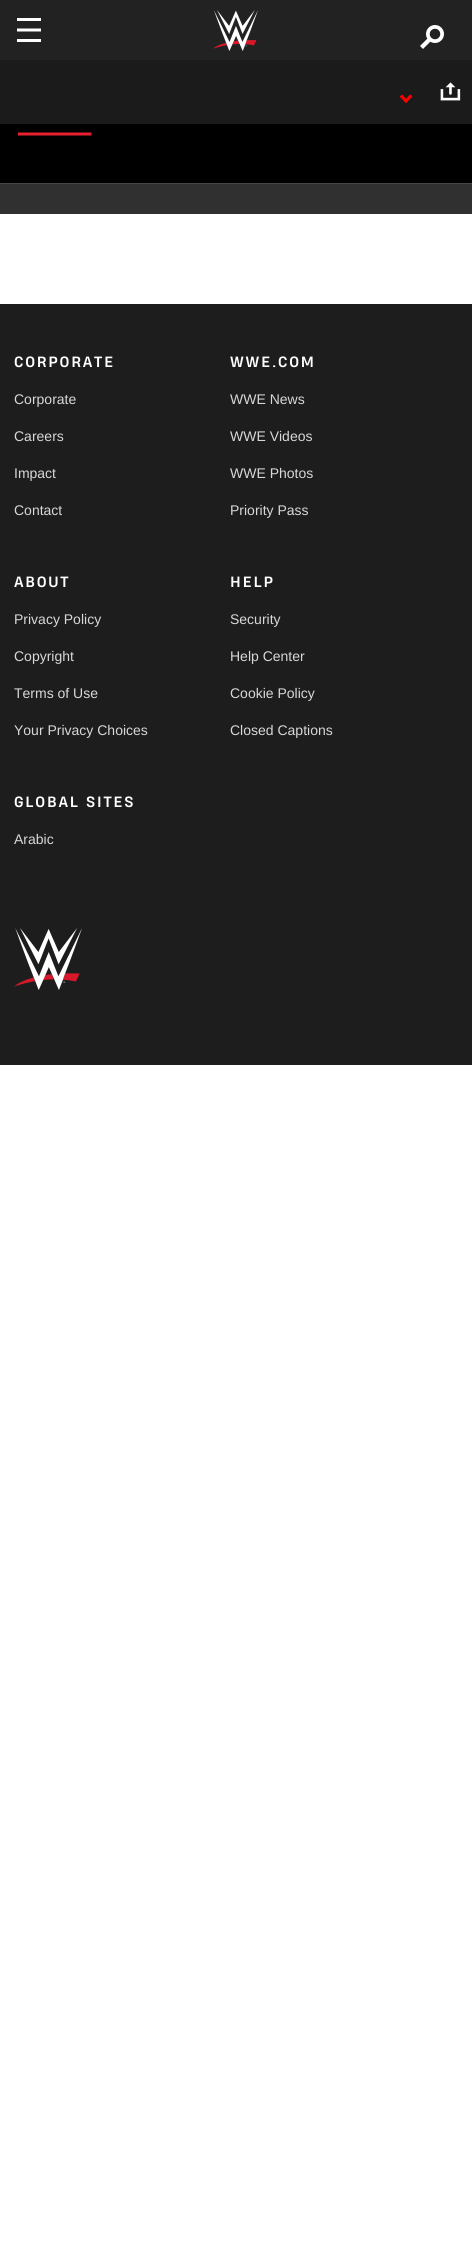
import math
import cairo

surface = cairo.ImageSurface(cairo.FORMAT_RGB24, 472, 2241)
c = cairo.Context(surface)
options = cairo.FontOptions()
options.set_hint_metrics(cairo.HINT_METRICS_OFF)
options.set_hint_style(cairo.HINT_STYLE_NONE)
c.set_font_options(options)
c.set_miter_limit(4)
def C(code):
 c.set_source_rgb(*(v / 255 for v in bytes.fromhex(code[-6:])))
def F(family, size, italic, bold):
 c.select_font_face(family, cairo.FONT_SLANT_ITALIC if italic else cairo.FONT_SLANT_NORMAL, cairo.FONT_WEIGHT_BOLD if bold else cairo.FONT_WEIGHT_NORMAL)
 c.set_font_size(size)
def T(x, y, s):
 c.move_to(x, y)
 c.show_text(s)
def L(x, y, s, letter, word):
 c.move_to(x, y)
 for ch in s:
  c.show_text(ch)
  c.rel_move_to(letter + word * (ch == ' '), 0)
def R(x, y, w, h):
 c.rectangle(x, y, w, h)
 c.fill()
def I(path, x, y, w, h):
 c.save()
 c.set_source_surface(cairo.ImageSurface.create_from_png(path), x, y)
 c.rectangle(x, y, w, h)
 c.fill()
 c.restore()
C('ffffff')
c.paint()
C('222222')
R(0,0,472,60)
I('1.png',17,18,24,24)
I('2.png',213,10,45,41)
I('3.png',420,25,24,24)
C('303030')
R(0,184,472,30)
C('1b1b1b')
R(0,60,472,64)
C('ff0000')
c.new_path()
c.move_to(410,94.5)
c.line_to(412.5,96.5)
c.line_to(406,103)
c.line_to(404,101)
c.close_path()
c.fill()
c.new_path()
c.move_to(402,94.5)
c.line_to(408,101)
c.line_to(406,103)
c.line_to(399.5,96.5)
c.close_path()
c.fill()
I('4.png',440,82,21,19)
C('000000')
R(0,124,472,59)
C('474747')
R(0,183,472,1)
c.save()
c.rectangle(18,131,90,5)
c.clip()
c.new_path()
c.move_to(1.5,134)
c.line_to(91.5,134)
C('e7202f')
c.set_line_width(3)
c.stroke()
c.restore()
C('1d1d1d')
R(0,304,472,761)
F('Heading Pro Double',14,0,1)
C('ffffff')
L(14,367,'CORPORATE',1.75,0)
F('Liberation Sans',14,0,0)
C('d8d8d8')
T(14,404,'Corporate')
T(14,441,'Careers')
T(14,478,'Impact')
T(14,515,'Contact')
F('Heading Pro Double',14,0,1)
C('ffffff')
L(230,367,'WWE.COM',1.75,0)
F('Liberation Sans',14,0,0)
C('d8d8d8')
T(230,404,'WWE News')
T(230,441,'WWE Videos')
T(230,478,'WWE Photos')
T(230,515,'Priority Pass')
F('Heading Pro Double',14,0,1)
C('ffffff')
L(14,587,'ABOUT',1.75,0)
F('Liberation Sans',14,0,0)
C('d8d8d8')
T(14,624,'Privacy Policy')
T(14,661,'Copyright')
T(14,698,'Terms of Use')
T(14,735,'Your Privacy Choices')
F('Heading Pro Double',14,0,1)
C('ffffff')
L(230,587,'HELP',1.75,0)
F('Liberation Sans',14,0,0)
C('d8d8d8')
T(230,624,'Security')
T(230,661,'Help Center')
T(230,698,'Cookie Policy')
T(230,735,'Closed Captions')
F('Heading Pro Double',14,0,1)
C('ffffff')
L(14,807,'GLOBAL SITES',1.75,0)
F('Liberation Sans',14,0,0)
C('d8d8d8')
T(14,844,'Arabic')
I('5.png',14,928,68,62)
surface.write_to_png('o.png')
